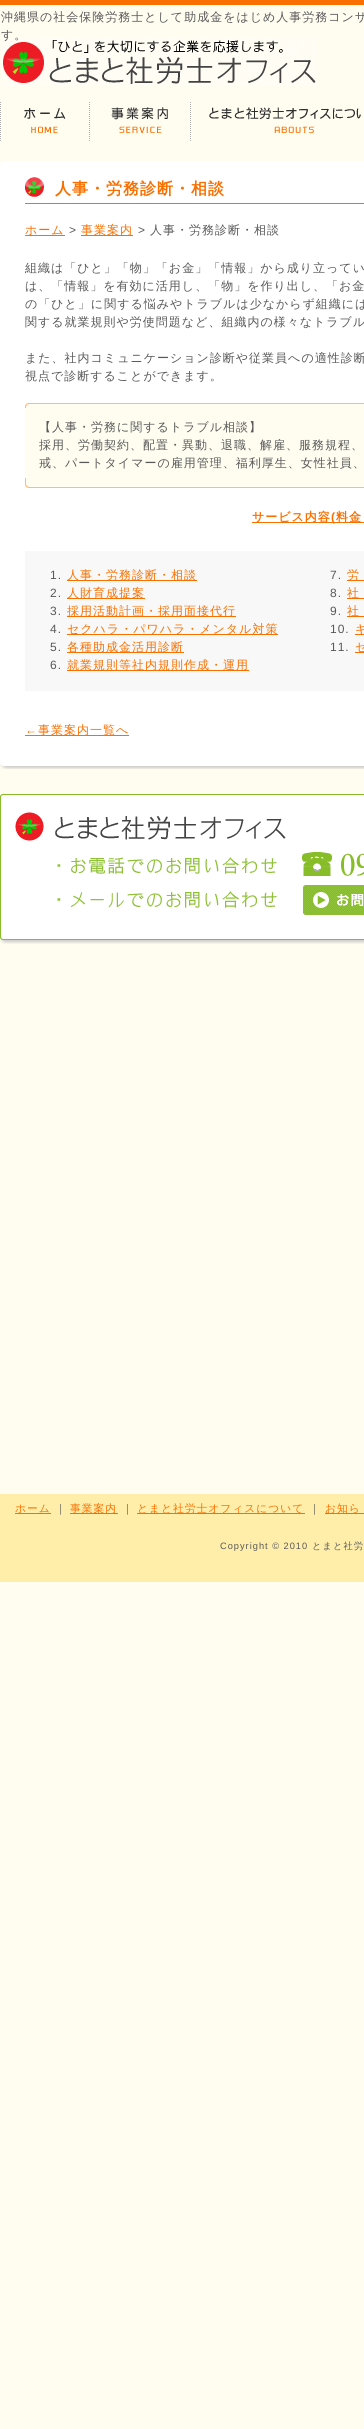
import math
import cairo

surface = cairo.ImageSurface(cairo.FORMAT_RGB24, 364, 2429)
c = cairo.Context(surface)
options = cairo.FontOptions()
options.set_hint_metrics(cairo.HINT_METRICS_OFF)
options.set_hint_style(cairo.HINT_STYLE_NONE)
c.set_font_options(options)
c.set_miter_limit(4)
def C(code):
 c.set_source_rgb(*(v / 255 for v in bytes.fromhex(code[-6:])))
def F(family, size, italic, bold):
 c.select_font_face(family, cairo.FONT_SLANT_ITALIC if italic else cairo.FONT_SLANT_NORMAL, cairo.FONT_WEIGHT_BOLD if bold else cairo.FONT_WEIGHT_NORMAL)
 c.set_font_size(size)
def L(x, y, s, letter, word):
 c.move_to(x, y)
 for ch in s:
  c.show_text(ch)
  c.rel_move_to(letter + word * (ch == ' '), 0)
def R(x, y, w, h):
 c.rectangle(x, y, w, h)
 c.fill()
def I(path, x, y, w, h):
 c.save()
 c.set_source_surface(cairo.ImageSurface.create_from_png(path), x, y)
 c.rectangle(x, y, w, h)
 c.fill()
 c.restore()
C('fffcf0')
c.paint()
C('f96f00')
R(0,0,364,5)
F('WenQuanYi Zen Hei Medium',12,0,0)
C('585858')
L(1,21,'沖縄県の社会保険労務士として助成金をはじめ人事労務コンサ',1,0)
I('1.png',2,38,315,48)
L(1,39,'す。',1,0)
I('2.png',0,101,90,40)
I('3.png',111,101,80,40)
I('4.png',209,107,152,26)
I('5.png',0,161,364,5)
C('ffffff')
R(0,166,364,593)
I('6.png',25,177,339,27)
F('WenQuanYi Zen Hei',16,0,1)
C('f97000')
L(55,194,'人事・労務診断・相談',1,0)
R(25,235,40,1)
F('WenQuanYi Zen Hei Medium',12,0,0)
L(25,234,'ホーム',1,0)
F('Liberation Sans',12,0,0)
C('585858')
L(69,234,'>',1,0)
C('f97000')
R(81,235,52,1)
F('WenQuanYi Zen Hei Medium',12,0,0)
L(81,234,'事業案内',1,0)
F('Liberation Sans',12,0,0)
C('585858')
L(138,234,'>',1,0)
F('WenQuanYi Zen Hei Medium',12,0,0)
L(150,234,'人事・労務診断・相談',1,0)
L(25,272,'組織は「ひと」「物」「お金」「情報」から成り立ってい',1,0)
L(25,290,'は、「情報」を有効に活用し、「物」を作り出し、「お金',1,0)
L(25,308,'の「ひと」に関する悩みやトラブルは少なからず組織には',1,0)
L(25,326,'関する就業規則や労使問題など、組織内の様々なトラブル',1,0)
L(25,362,'また、社内コミュニケーション診断や従業員への適性診断',1,0)
L(25,380,'視点で診断することができます。',1,0)
I('7.png',25,403,339,5)
C('fffdf0')
R(25,408,339,70)
C('585858')
L(39,431,'【人事・労務に関するトラブル相談】',1,0)
L(39,449,'採用、労働契約、配置・異動、退職、解雇、服務規程、',1,0)
L(39,467,'戒、パートタイマーの雇用管理、福利厚生、女性社員、',1,0)
I('8.png',25,478,339,10)
C('f97000')
R(252,522,112,1)
F('WenQuanYi Zen Hei',12,0,1)
L(252,521,'サービス内容',1,0)
F('Liberation Sans',12,0,1)
L(331,521,'(',1,0)
F('WenQuanYi Zen Hei',12,0,1)
L(336,521,'料金',1,0)
C('f8f8f8')
R(25,551,339,140)
F('Liberation Sans',12,0,0)
C('585858')
L(50,579,'1.',1,0)
C('f97000')
R(67,580,130,1)
F('WenQuanYi Zen Hei Medium',12,0,0)
L(67,579,'人事・労務診断・相談',1,0)
F('Liberation Sans',12,0,0)
C('585858')
L(50,597,'2.',1,0)
C('f97000')
R(67,598,78,1)
F('WenQuanYi Zen Hei Medium',12,0,0)
L(67,597,'人財育成提案',1,0)
F('Liberation Sans',12,0,0)
C('585858')
L(50,615,'3.',1,0)
C('f97000')
R(67,616,169,1)
F('WenQuanYi Zen Hei Medium',12,0,0)
L(67,615,'採用活動計画・採用面接代行',1,0)
F('Liberation Sans',12,0,0)
C('585858')
L(50,633,'4.',1,0)
C('f97000')
R(67,634,211,1)
F('WenQuanYi Zen Hei Medium',12,0,0)
L(67,633,'セクハラ・パワハラ・メンタル対策',1,0)
F('Liberation Sans',12,0,0)
C('585858')
L(50,651,'5.',1,0)
C('f97000')
R(67,652,117,1)
F('WenQuanYi Zen Hei Medium',12,0,0)
L(67,651,'各種助成金活用診断',1,0)
F('Liberation Sans',12,0,0)
C('585858')
L(50,669,'6.',1,0)
C('f97000')
R(67,670,182,1)
F('WenQuanYi Zen Hei Medium',12,0,0)
L(67,669,'就業規則等社内規則作成・運用',1,0)
F('Liberation Sans',12,0,0)
C('585858')
L(330,579,'7.',1,0)
C('f97000')
R(347,580,17,1)
F('WenQuanYi Zen Hei Medium',12,0,0)
L(347,579,'労',1,0)
F('Liberation Sans',12,0,0)
C('585858')
L(330,597,'8.',1,0)
C('f97000')
R(347,598,17,1)
F('WenQuanYi Zen Hei Medium',12,0,0)
L(347,597,'社',1,0)
F('Liberation Sans',12,0,0)
C('585858')
L(330,615,'9.',1,0)
C('f97000')
R(347,616,17,1)
F('WenQuanYi Zen Hei Medium',12,0,0)
L(347,615,'社',1,0)
F('Liberation Sans',12,0,0)
C('585858')
L(330,633,'10.',1,0)
C('f97000')
R(355,634,9,1)
F('WenQuanYi Zen Hei Medium',12,0,0)
L(355,633,'キ',1,0)
F('Liberation Sans',12,0,0)
C('585858')
L(330,651,'11.',1,0)
C('f97000')
R(355,652,9,1)
F('WenQuanYi Zen Hei Medium',12,0,0)
L(355,651,'セ',1,0)
F('Liberation Sans',12,0,0)
L(25,734,'←',1,0)
R(25,735,104,1)
F('WenQuanYi Zen Hei Medium',12,0,0)
L(38,734,'事業案内一覧へ',1,0)
I('9.png',0,759,364,10)
I('10.png',0,794,364,150)
C('ffeea9')
R(0,1494,364,88)
C('f97000')
R(15,1513,36,1)
F('WenQuanYi Zen Hei Medium',10.75,0,0)
L(15,1512,'ホーム',1,0)
C('585858')
L(55,1512,'｜',1,0)
C('f97000')
R(70,1513,48,1)
L(70,1512,'事業案内',1,0)
C('585858')
L(122,1512,'｜',1,0)
C('f97000')
R(137,1513,168,1)
L(137,1512,'とまと社労士オフィスについて',1,0)
C('585858')
L(309,1512,'｜',1,0)
C('f97000')
R(325,1513,39,1)
L(325,1512,'お知ら',1,0)
F('Liberation Sans',9.25,0,0)
C('585858')
L(220,1549,'Copyright © 2010',1,0)
F('WenQuanYi Zen Hei Medium',9.25,0,0)
L(312,1549,'とまと社労',1,0)
surface.write_to_png('o.png')
